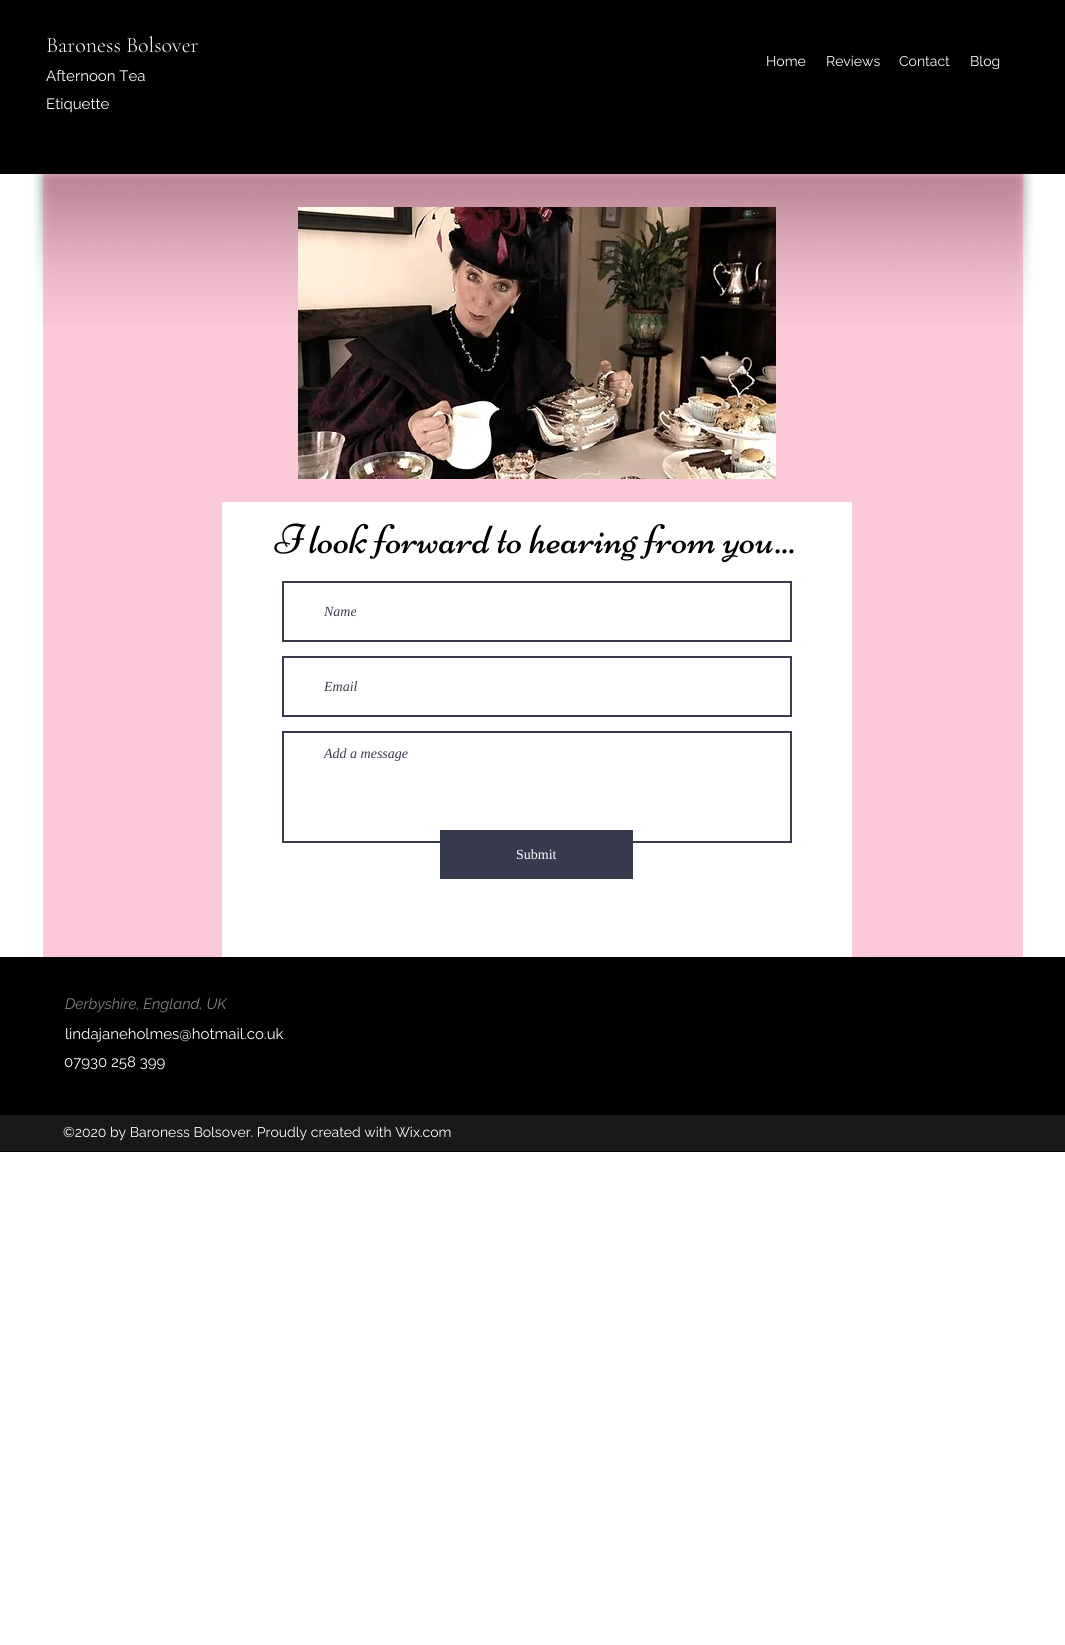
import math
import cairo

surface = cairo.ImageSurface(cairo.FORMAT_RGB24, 1065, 1645)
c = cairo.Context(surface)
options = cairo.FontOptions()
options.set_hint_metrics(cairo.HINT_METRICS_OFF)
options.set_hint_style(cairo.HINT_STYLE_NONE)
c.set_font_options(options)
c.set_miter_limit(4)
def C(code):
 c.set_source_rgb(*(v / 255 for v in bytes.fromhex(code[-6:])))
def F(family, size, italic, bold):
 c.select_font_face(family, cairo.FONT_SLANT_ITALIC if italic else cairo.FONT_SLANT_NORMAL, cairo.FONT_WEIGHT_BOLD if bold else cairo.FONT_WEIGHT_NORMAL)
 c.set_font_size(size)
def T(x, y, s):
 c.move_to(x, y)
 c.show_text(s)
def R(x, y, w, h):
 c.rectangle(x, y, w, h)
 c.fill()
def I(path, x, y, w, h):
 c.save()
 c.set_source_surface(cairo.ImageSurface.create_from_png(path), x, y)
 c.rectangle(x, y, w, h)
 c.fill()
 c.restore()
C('ffffff')
c.paint()
C('000000')
R(0,0,1065,174)
F('Cormorant Garamond Light',22,0,0)
C('ffffff')
T(46,52,'Baroness Bolsover')
F('Raleway',15,0,0)
T(46,81,'Afternoon Tea')
T(46,109,'Etiquette')
F('Raleway',14,0,0)
T(766,66,'Home')
T(826,66,'Reviews')
C('f7f7f7')
T(899,66,'Contact')
C('ffffff')
T(970,66,'Blog')
I('1.png',33,174,45,150)
I('2.png',78,174,910,150)
I('3.png',988,174,45,150)
c.set_source_rgba(0.957,0.392,0.557,0.35)
R(43,174,980,783)
I('4.png',298,207,478,272)
C('ffffff')
R(222,502,630,455)
I('5.png',274,523,520,40)
c.rectangle(283,582,508,59)
C('373b4d')
c.stroke()
F('Liberation Serif',14,1,0)
T(324,616,'Name')
c.rectangle(283,657,508,59)
c.stroke()
T(324,691,'Email')
c.rectangle(283,732,508,110)
c.stroke()
T(324,758,'Add a message')
R(440,830,193,49)
F('Liberation Serif',14,0,0)
C('ffffff')
T(516,859,'Submit')
C('000000')
R(0,957,1065,195)
F('Raleway',15,1,0)
C('7e877f')
T(65,1009,'Derbyshire, England, UK')
F('Raleway',15,0,0)
C('ffffff')
T(65,1039,'lindajaneholmes@hotmail.co.uk')
T(64,1067,'07930 258 399')
C('191919')
R(0,1115,1065,36)
F('Raleway',14,0,0)
C('ffffff')
T(63,1137,'©2020 by Baroness Bolsover. Proudly created with Wix.com')
surface.write_to_png('o.png')
